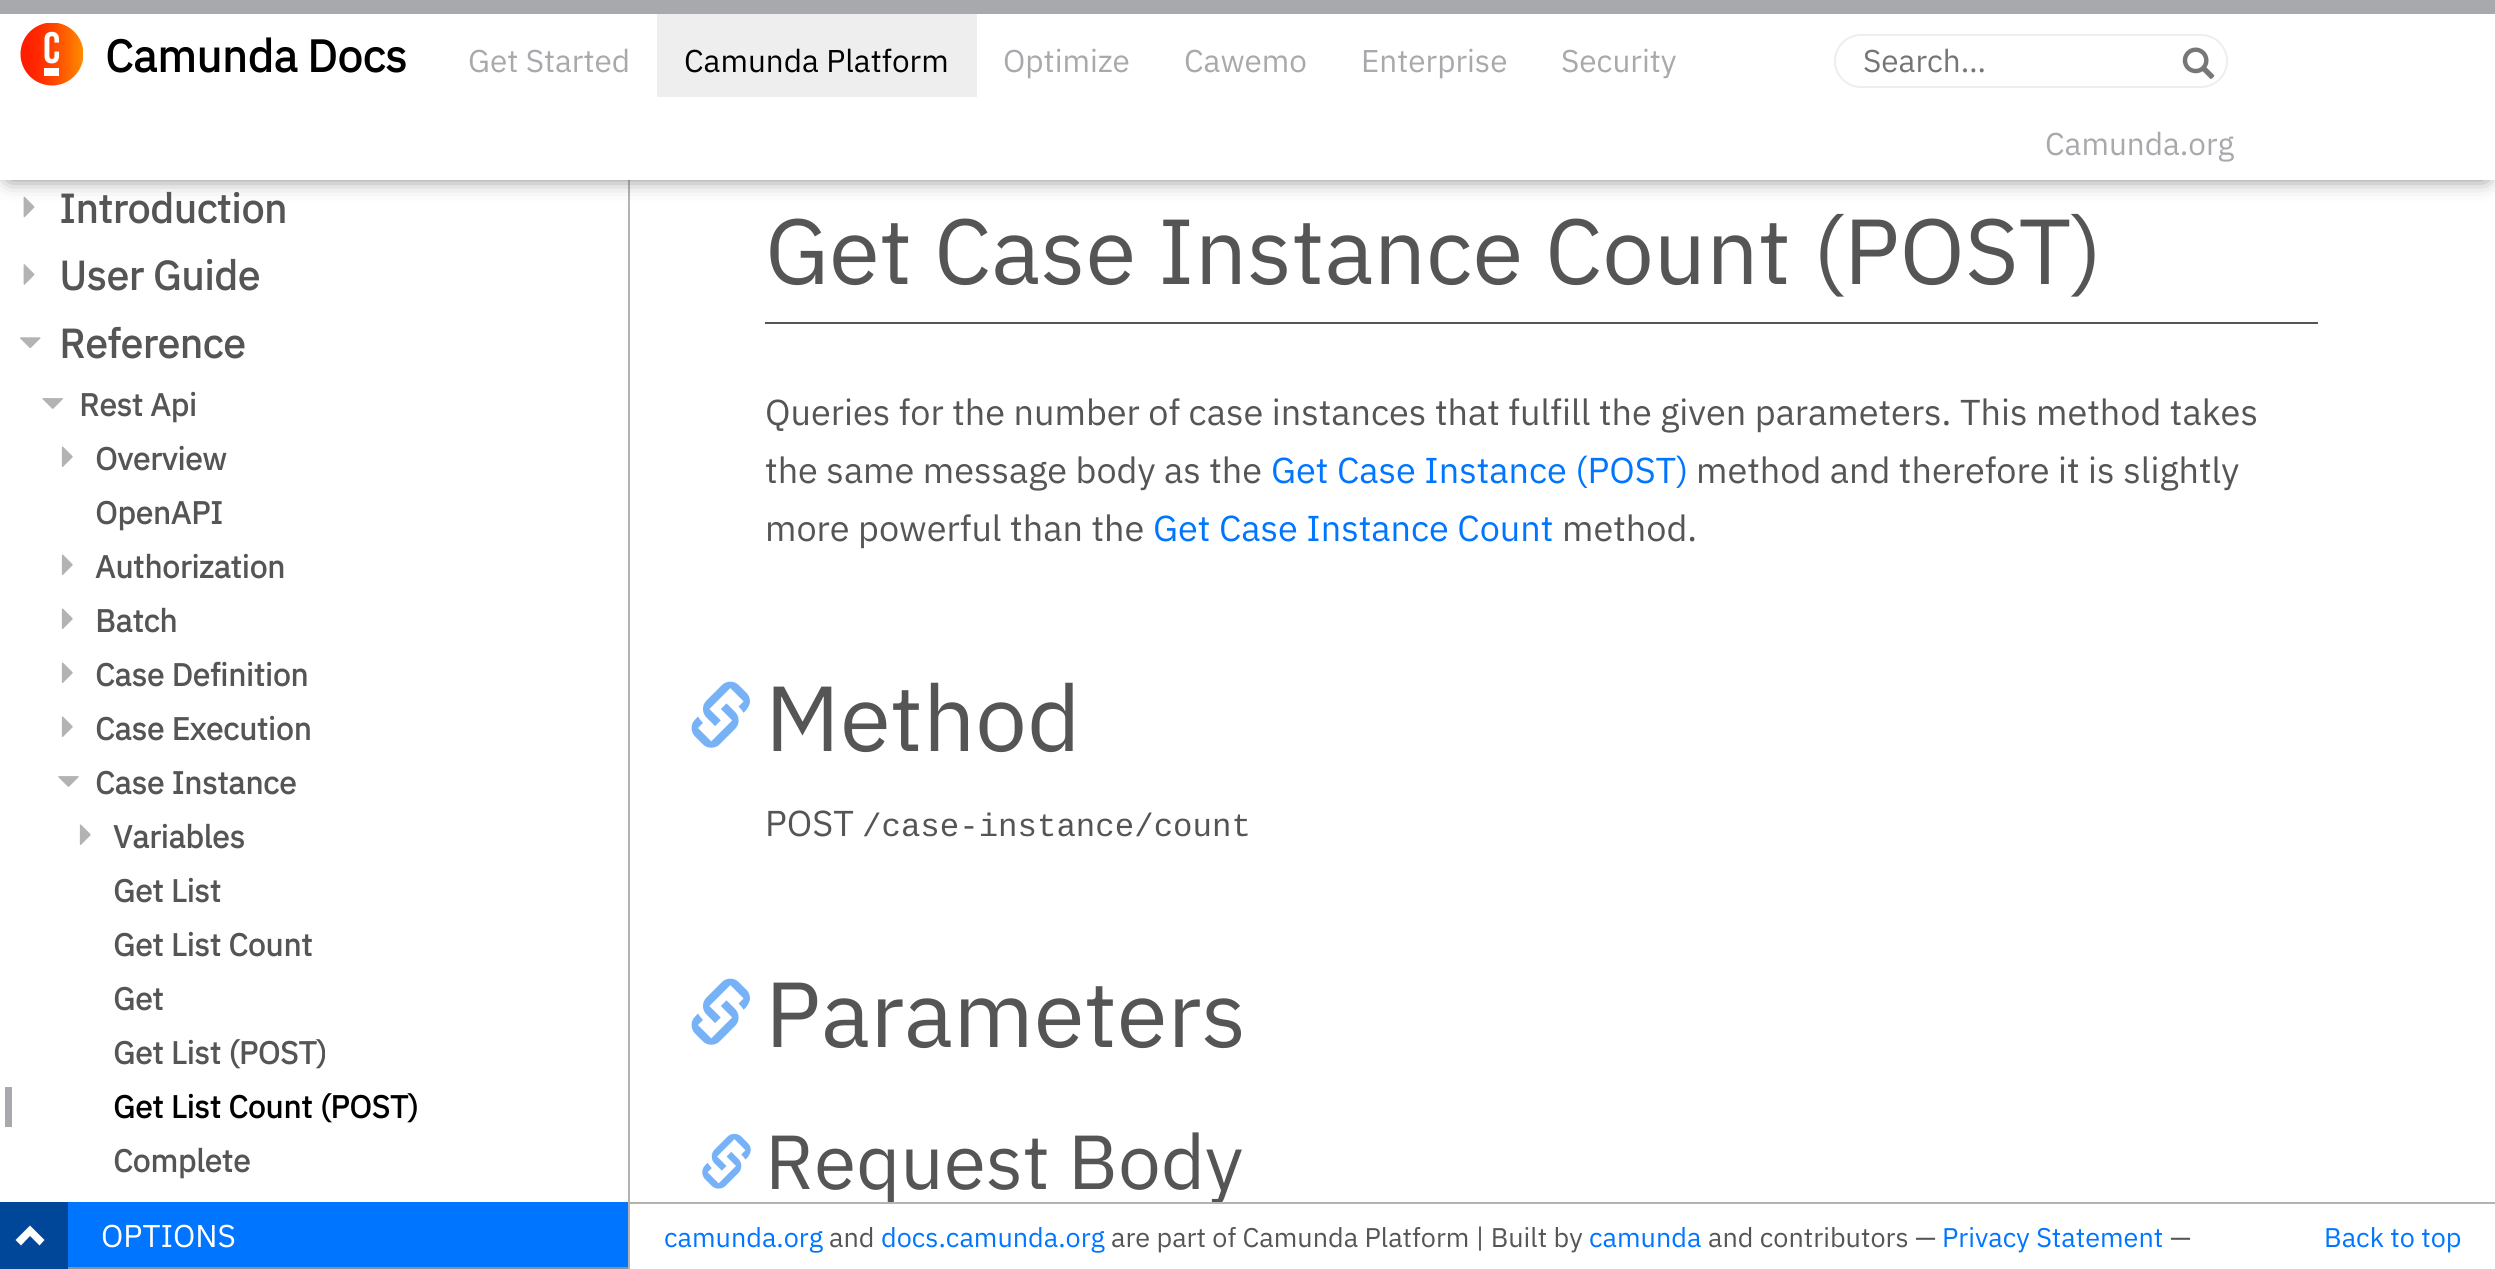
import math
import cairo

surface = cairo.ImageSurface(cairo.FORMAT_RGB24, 2495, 1269)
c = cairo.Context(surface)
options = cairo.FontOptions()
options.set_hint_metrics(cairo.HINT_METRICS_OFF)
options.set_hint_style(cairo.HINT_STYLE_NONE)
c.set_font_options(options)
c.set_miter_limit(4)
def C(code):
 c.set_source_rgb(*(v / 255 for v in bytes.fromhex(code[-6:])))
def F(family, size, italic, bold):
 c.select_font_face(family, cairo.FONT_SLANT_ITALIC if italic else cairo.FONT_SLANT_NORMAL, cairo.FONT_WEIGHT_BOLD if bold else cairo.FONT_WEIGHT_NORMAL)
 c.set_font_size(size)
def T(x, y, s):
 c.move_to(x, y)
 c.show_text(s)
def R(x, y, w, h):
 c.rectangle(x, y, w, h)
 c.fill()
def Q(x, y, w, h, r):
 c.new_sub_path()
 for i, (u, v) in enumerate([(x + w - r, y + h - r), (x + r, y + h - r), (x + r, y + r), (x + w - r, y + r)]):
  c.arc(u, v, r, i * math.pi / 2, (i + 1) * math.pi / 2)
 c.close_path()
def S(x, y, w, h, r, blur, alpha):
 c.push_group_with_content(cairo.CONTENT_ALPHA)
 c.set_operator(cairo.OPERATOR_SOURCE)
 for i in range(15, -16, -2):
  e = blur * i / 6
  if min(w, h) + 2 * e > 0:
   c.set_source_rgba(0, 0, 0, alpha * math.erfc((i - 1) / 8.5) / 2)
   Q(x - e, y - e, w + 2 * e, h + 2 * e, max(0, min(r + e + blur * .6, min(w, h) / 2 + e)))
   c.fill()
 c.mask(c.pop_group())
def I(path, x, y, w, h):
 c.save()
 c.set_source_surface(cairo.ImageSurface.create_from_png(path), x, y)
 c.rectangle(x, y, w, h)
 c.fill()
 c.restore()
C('ffffff')
c.paint()
C('b3b3b3')
R(628,180,2,1089)
I('3.png',23,196,12,22)
C('555555')
S(9,14,2477,162,0,11,1)
C('ffffff')
R(0,14,2495,166)
C('a7a9ac')
R(0,0,2495,14)
I('1.png',20,23,63,63)
F('IBM Plex Sans',45,0,1)
C('000000')
T(105,72,'Camunda')
T(307,72,'Docs')
F('IBM Plex Sans',31.5,0,0)
C('a7a9ac')
T(468,72,'Get Started')
C('eeeeee')
R(657,14,320,83)
C('000000')
T(684,72,'Camunda Platform')
C('a7a9ac')
T(1003,72,'Optimize')
T(1184,72,'Cawemo')
T(1361,72,'Enterprise')
T(1561,72,'Security')
Q(1835,35,392,52,26)
C('eeeeee')
c.stroke()
C('757575')
T(1863,72,'Search…')
I('2.png',2182,47,33,32)
C('a7a9ac')
T(2045,155,'Camunda.org')
F('IBM Plex Sans',40.5,0,1)
C('555555')
T(59,223,'Introduction')
I('4.png',23,264,12,21)
T(59,290,'User Guide')
I('5.png',20,337,21,12)
T(59,358,'Reference')
I('6.png',42,398,21,11)
F('IBM Plex Sans',31.5,0,1)
T(79,416,'Rest Api')
I('7.png',61,446,12,21)
T(95,470,'Overview')
T(95,524,'OpenAPI')
I('7.png',61,554,12,21)
T(95,578,'Authorization')
I('7.png',61,608,12,21)
T(95,632,'Batch')
I('7.png',61,662,12,21)
T(95,686,'Case Definition')
I('7.png',61,716,12,21)
T(95,740,'Case Execution')
I('8.png',58,776,21,11)
T(95,794,'Case Instance')
I('7.png',79,824,12,21)
T(113,848,'Variables')
T(113,902,'Get List')
T(113,956,'Get List Count')
T(113,1010,'Get')
T(113,1064,'Get List (POST)')
C('a7a9ac')
R(5,1087,7,40)
C('000000')
T(113,1118,'Get List Count (POST)')
C('555555')
T(113,1172,'Complete')
C('0075ff')
R(68,1202,560,65)
C('8d8f93')
R(68,1267,560,2)
C('004699')
R(0,1202,68,67)
C('ffffff')
c.new_path()
c.move_to(44.5,1240)
c.line_to(39.5,1245.5)
c.line_to(30,1236)
c.line_to(21,1245.5)
c.line_to(15.5,1240)
c.line_to(30,1225.5)
c.close_path()
c.fill()
F('IBM Plex Sans',31.5,0,0)
T(101,1247,'OPTIONS')
C('555555')
R(765,322,1553,2)
F('IBM Plex Sans',92.25,0,0)
T(765,284,'Get Case Instance Count (POST)')
F('IBM Plex Sans',36,0,0)
T(765,425,'Queries for the number of case instances that fulfill the given parameters. This method takes')
T(765,483,'the same message body as the')
C('0075ff')
T(1271,483,'Get Case Instance (POST)')
C('555555')
T(1696,483,'method and therefore it is slightly')
T(765,541,'more powerful than the')
C('0075ff')
T(1153,541,'Get Case Instance Count')
C('555555')
T(1562,541,'method.')
I('9.png',691,681,59,67)
F('IBM Plex Sans',92.25,0,0)
T(765,751,'Method')
F('IBM Plex Sans',36,0,0)
T(765,836,'POST')
F('Liberation Mono',32.4,0,0)
T(862,836,'/case-instance/count')
I('9.png',691,978,59,67)
F('IBM Plex Sans',92.25,0,0)
T(765,1047,'Parameters')
I('10.png',702,1133,49,56)
F('IBM Plex Sans',76.5,0,0)
T(765,1189,'Request Body')
C('ffffff')
R(887,1204,332,1)
C('b3b3b3')
R(630,1202,1865,2)
F('IBM Plex Sans',27,0,0)
C('0075ff')
T(664,1247,'camunda.org')
C('555555')
T(829,1247,'and')
C('0075ff')
T(881,1247,'docs.camunda.org')
C('555555')
T(1111,1247,'are part of Camunda Platform | Built by')
C('0075ff')
T(1589,1247,'camunda')
C('555555')
T(1708,1247,'and contributors —')
C('0075ff')
T(1942,1247,'Privacy Statement')
C('555555')
T(2170,1247,'—')
C('0075ff')
T(2324,1247,'Back to top')
surface.write_to_png('o.png')
